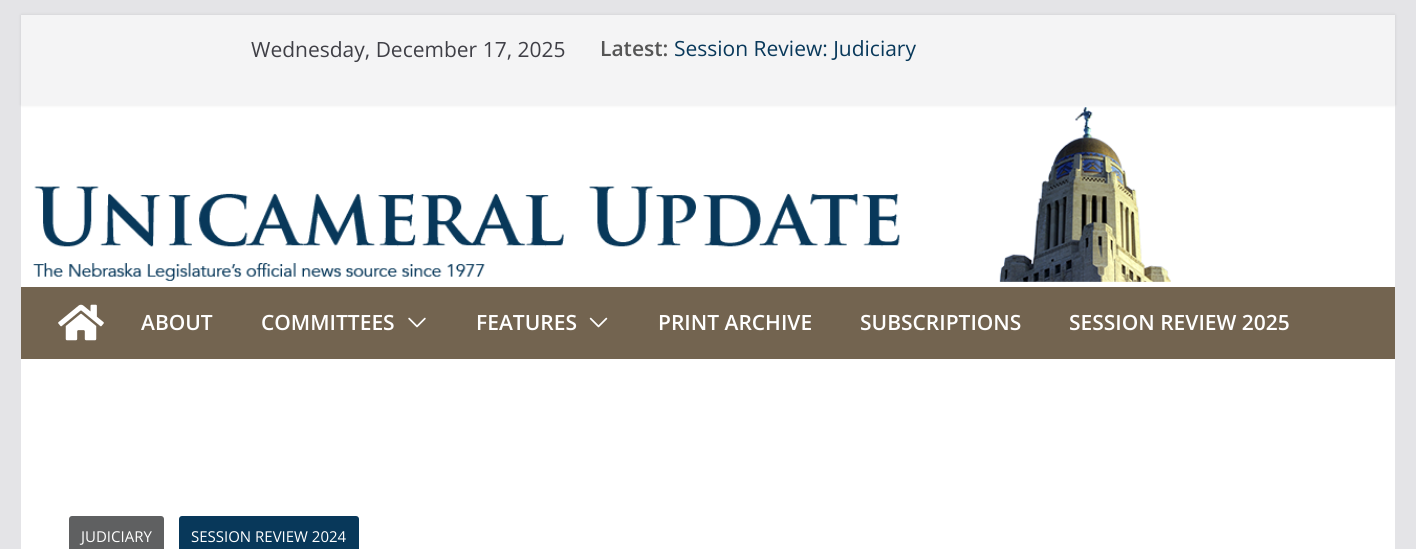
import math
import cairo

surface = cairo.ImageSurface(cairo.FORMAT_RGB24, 1416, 549)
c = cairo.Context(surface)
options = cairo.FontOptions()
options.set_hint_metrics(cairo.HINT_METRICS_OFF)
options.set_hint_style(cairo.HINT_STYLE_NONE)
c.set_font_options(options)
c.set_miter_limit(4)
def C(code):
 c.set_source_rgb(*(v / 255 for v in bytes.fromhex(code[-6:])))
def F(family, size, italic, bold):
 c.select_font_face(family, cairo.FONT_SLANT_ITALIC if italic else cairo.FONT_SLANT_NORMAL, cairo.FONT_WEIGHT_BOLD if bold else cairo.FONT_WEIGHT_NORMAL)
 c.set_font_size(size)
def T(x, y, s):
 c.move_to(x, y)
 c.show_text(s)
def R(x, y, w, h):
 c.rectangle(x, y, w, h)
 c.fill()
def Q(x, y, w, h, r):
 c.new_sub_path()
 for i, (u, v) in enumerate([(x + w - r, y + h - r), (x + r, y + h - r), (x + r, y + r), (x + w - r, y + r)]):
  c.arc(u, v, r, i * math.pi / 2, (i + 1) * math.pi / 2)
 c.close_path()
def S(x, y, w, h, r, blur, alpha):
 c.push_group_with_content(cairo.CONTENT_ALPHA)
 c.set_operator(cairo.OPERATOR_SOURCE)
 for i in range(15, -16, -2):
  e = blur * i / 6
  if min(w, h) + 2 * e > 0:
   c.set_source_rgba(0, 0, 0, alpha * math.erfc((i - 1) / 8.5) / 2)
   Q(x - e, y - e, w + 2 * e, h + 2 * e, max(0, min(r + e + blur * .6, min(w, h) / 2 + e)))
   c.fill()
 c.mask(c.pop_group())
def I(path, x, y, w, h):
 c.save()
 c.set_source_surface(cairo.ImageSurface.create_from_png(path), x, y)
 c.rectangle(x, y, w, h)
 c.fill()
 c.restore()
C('e4e4e7')
c.paint()
C('ffffff')
R(21,105,1374,182)
C('000000')
S(21,15,1374,90,0,1.5,.1)
C('f4f4f5')
R(21,15,1374,90)
F('Open Sans',21,0,0)
C('3f3f46')
T(251,57,'Wednesday, December 17, 2025')
F('Open Sans SemiBold',21,0,0)
C('555555')
T(600,56,'Latest:')
F('Open Sans',21,0,0)
C('08385a')
T(674,56,'Session Review: Judiciary')
I('1.png',33,107,1138,175)
C('736450')
R(21,287,1374,72)
I('2.png',58,304,46,37)
F('Open Sans SemiBold',21,0,0)
C('ffffff')
T(141,330,'ABOUT')
T(261,330,'COMMITTEES')
I('3.png',408,317,18,11)
T(476,330,'FEATURES')
I('4.png',589,317,19,11)
T(658,330,'PRINT ARCHIVE')
T(860,330,'SUBSCRIPTIONS')
T(1069,330,'SESSION REVIEW 2025')
R(21,359,1374,190)
C('5f6061')
Q(69,516,95,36,3)
c.fill()
F('Open Sans',15,0,0)
C('ffffff')
T(81,542,'JUDICIARY')
C('08385a')
Q(179,516,180,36,3)
c.fill()
C('ffffff')
T(191,542,'SESSION REVIEW 2024')
surface.write_to_png('o.png')
